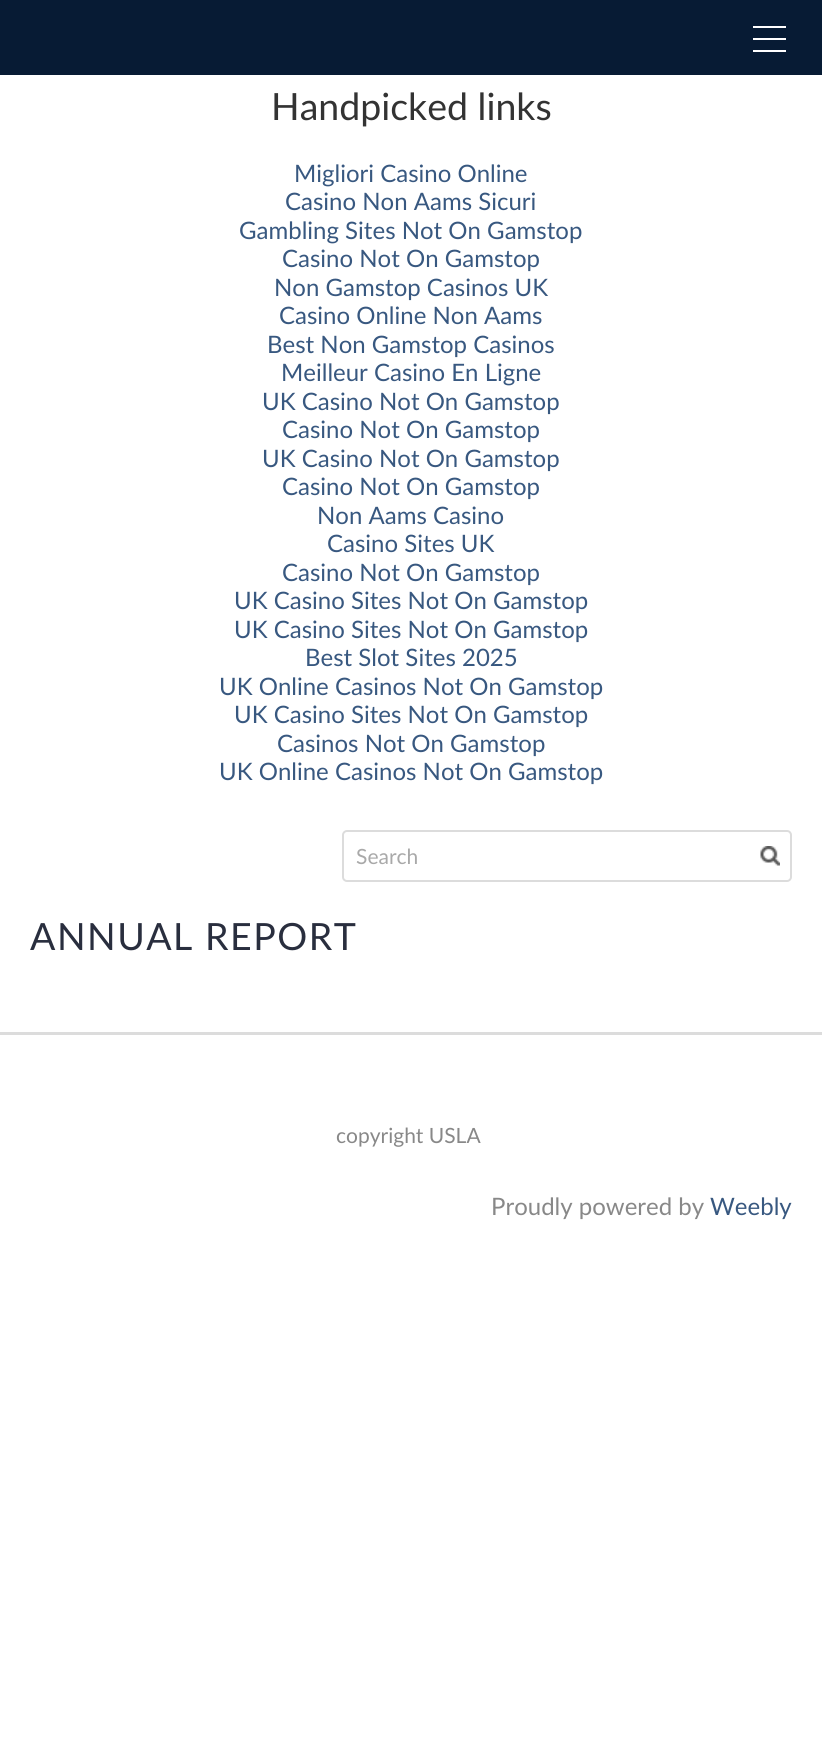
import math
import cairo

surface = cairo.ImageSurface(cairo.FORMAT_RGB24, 822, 1738)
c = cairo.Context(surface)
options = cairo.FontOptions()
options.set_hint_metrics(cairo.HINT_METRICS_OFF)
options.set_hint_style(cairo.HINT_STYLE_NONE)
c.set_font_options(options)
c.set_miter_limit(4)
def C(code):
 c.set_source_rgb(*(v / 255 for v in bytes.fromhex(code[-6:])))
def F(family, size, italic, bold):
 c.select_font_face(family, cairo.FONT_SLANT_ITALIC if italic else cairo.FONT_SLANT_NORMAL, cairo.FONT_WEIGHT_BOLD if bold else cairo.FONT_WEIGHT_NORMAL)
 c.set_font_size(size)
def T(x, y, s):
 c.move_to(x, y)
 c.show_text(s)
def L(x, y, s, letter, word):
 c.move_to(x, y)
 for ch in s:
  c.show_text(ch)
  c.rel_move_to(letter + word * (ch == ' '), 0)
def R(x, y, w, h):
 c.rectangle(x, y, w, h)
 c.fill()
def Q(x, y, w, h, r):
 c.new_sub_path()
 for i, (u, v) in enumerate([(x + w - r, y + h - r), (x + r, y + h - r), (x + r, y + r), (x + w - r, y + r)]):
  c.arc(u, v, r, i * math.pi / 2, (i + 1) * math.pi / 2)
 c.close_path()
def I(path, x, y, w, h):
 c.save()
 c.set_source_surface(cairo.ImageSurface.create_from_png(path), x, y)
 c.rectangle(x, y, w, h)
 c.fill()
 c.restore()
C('ffffff')
c.paint()
C('071b34')
R(0,0,822,75)
C('ffffff')
R(753,38,33,2)
R(753,26,33,2)
R(753,50,33,2)
F('Lato',37.5,0,0)
C('333333')
T(271,120,'Handpicked links')
F('Lato',24,0,0)
C('385880')
T(294,182,'Migliori Casino Online')
T(285,210,'Casino Non Aams Sicuri')
T(239,239,'Gambling Sites Not On Gamstop')
T(282,267,'Casino Not On Gamstop')
T(274,296,'Non Gamstop Casinos UK')
T(279,324,'Casino Online Non Aams')
T(267,353,'Best Non Gamstop Casinos')
T(281,381,'Meilleur Casino En Ligne')
T(262,410,'UK Casino Not On Gamstop')
T(282,438,'Casino Not On Gamstop')
T(262,467,'UK Casino Not On Gamstop')
T(282,495,'Casino Not On Gamstop')
T(317,524,'Non Aams Casino')
T(327,552,'Casino Sites UK')
T(282,581,'Casino Not On Gamstop')
T(234,609,'UK Casino Sites Not On Gamstop')
T(234,638,'UK Casino Sites Not On Gamstop')
T(305,666,'Best Slot Sites 2025')
T(219,695,'UK Online Casinos Not On Gamstop')
T(234,723,'UK Casino Sites Not On Gamstop')
T(277,752,'Casinos Not On Gamstop')
T(219,780,'UK Online Casinos Not On Gamstop')
Q(343,831,448,50,4)
C('dcdcdc')
c.stroke()
F('Lato',21,0,0)
C('a9a9a9')
T(356,864,'Search')
I('1.png',760,846,20,20)
F('Lato',37.5,0,0)
C('292e3e')
L(30,950,'ANNUAL REPORT',1.5,0)
C('dcdcdc')
R(0,1032,822,3)
F('Lato',21,0,0)
C('888888')
T(336,1143,'copyright USLA')
F('Lato',24,0,0)
T(491,1215,'Proudly powered by')
C('385880')
T(710,1215,'Weebly')
surface.write_to_png('o.png')
